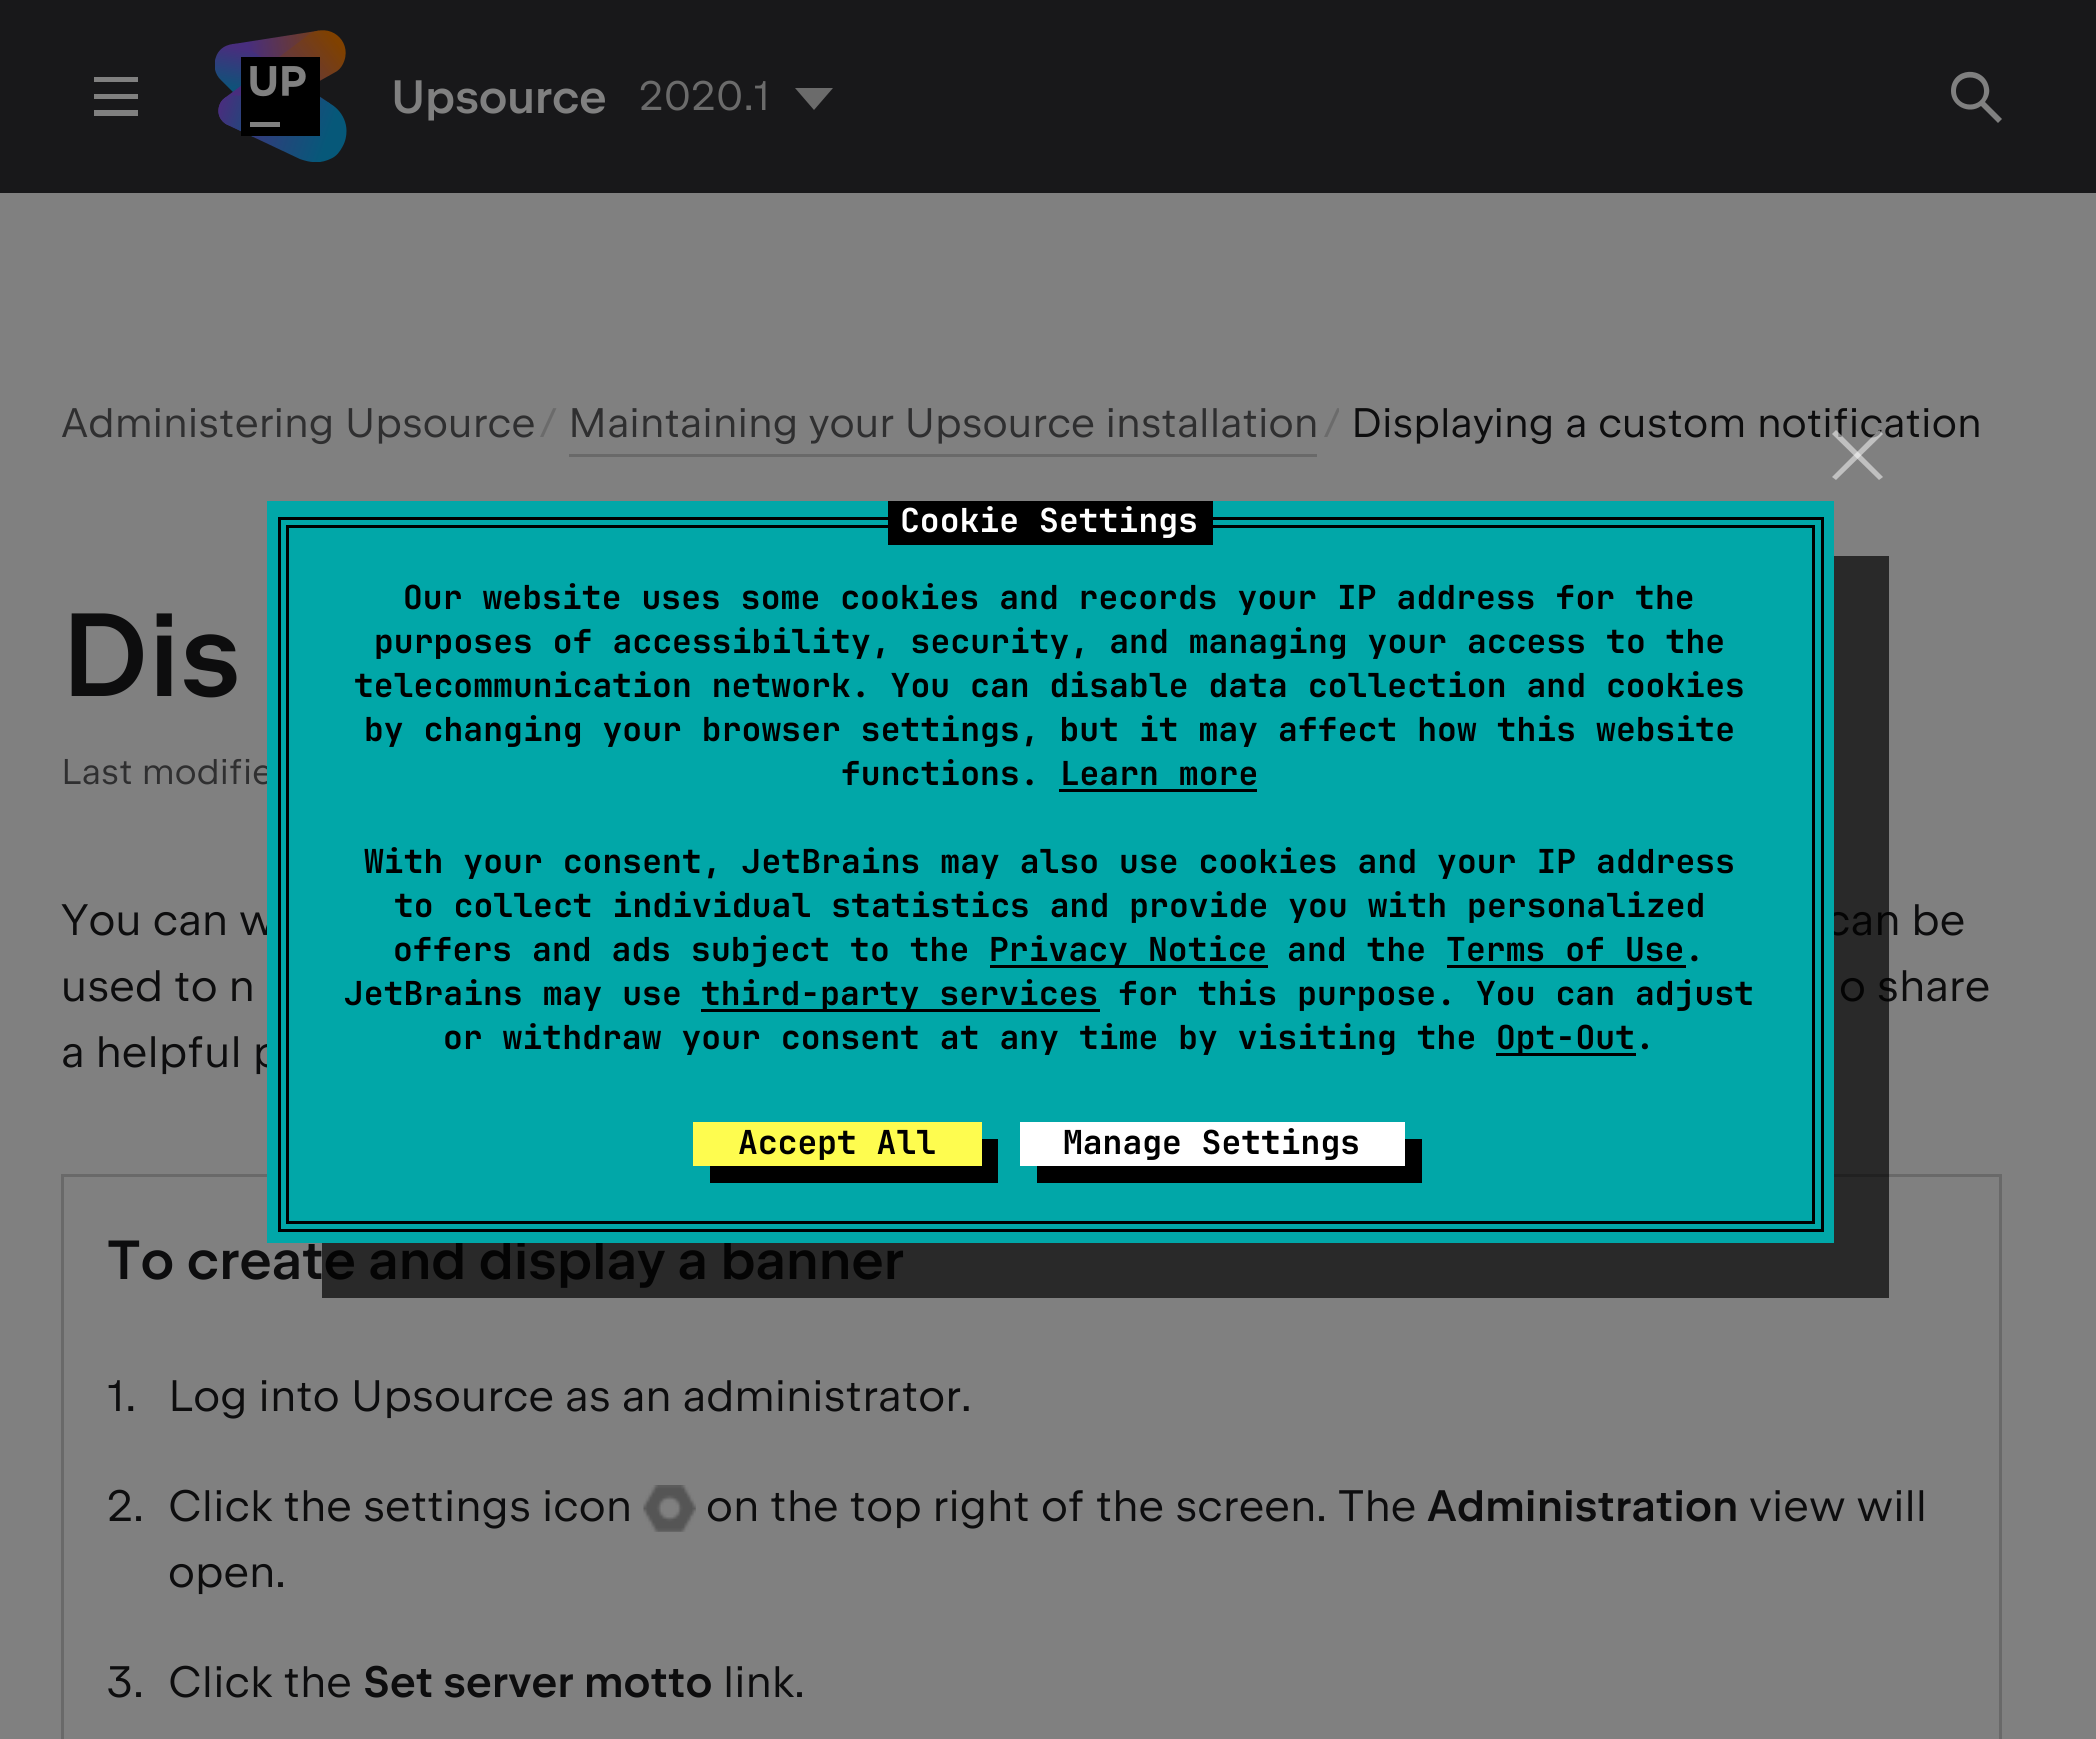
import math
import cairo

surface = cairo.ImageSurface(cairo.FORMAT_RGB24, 2096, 1739)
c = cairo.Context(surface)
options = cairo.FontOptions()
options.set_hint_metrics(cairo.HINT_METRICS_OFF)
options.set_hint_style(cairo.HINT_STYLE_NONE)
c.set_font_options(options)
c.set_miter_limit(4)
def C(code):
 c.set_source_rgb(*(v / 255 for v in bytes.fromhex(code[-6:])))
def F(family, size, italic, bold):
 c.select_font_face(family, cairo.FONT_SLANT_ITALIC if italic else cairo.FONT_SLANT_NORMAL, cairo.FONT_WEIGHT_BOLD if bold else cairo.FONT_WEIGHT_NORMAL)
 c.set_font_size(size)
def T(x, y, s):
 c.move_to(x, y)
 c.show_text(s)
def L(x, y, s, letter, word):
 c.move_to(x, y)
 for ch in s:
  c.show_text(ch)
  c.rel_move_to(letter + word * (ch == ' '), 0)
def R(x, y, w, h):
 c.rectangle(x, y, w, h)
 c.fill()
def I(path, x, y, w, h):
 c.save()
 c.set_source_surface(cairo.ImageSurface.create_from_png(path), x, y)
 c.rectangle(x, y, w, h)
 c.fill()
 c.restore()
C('808080')
c.paint()
C('18181a')
R(0,0,2096,193)
C('808080')
c.new_path()
c.move_to(94,77)
c.line_to(138,77)
c.line_to(138,82)
c.line_to(94,82)
c.close_path()
c.move_to(94,94)
c.line_to(138,94)
c.line_to(138,99)
c.line_to(94,99)
c.close_path()
c.move_to(94,110)
c.line_to(138,110)
c.line_to(138,116)
c.line_to(94,116)
c.close_path()
c.fill()
I('1.png',215,30,132,132)
F('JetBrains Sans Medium',46.75,0,0)
L(391,113,'Upsource',-.25,0)
F('JetBrains Sans',41.25,0,0)
C('6b6b6b')
L(639,110,'2020.1',.07,0)
c.new_path()
c.move_to(814,110)
c.line_to(795,88)
c.line_to(833,88)
c.close_path()
c.fill()
C('808080')
c.new_path()
c.move_to(1951,91)
c.curve_to(1951,106,1969,115,1981,106)
c.line_to(1998,123)
c.line_to(2002,119)
c.line_to(1985,102)
c.curve_to(1988,98,1990,93,1989,88)
c.curve_to(1985,65,1951,67,1951,91)
c.close_path()
c.move_to(1956,91)
c.curve_to(1956,73,1984,73,1984,91)
c.curve_to(1984,109,1956,109,1956,91)
c.close_path()
c.fill()
C('2f2f30')
L(61,437,'Administering Upsource',.07,0)
C('6b6b6b')
L(540,437,'/',.07,0)
C('2f2f30')
L(568,437,'Maintaining your Upsource installation',.07,0)
C('696969')
R(569,454,748,3)
c.save()
c.rectangle(569,391,770,66)
c.clip()
C('6b6b6b')
L(1324,437,'/',.07,0)
c.restore()
C('0d0d0e')
L(1351,437,'Displaying a custom notification',.07,.5)
F('JetBrains Sans Medium',118,0,0)
L(61,696,'Dis',0,2)
F('JetBrains Sans',35.75,0,0)
C('2f2f30')
L(61,784,'Last modifie',.2,0)
F('JetBrains Sans',44,0,0)
C('0d0d0e')
L(61,935,'You can w',.07,0)
L(1825,935,'can be',.07,0)
L(61,1001,'used to n',.07,0)
L(1839,1001,'o share',.07,0)
L(61,1067,'a helpful p',.07,0)
c.rectangle(62.5,1175.5,1938,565)
C('696969')
c.set_line_width(3)
c.stroke()
F('JetBrains Sans Medium',55,0,0)
C('0d0d0e')
T(107,1279,'To create and display a banner')
F('JetBrains Sans',44,0,0)
L(107,1411,'1.',.07,0)
L(168,1411,'Log into Upsource as an administrator.',.07,0)
L(107,1521,'2.',.07,0)
L(168,1521,'Click the settings icon',.07,0)
I('2.png',643,1485,53,47)
L(706,1521,'on the top right of the screen. The',.07,0)
F('JetBrains Sans Medium',44,0,0)
L(1427,1521,'Administration',.07,0)
F('JetBrains Sans',44,0,0)
L(1749,1521,'view will',.07,0)
L(168,1587,'open.',.07,0)
L(107,1697,'3.',.07,0)
L(168,1697,'Click the',.07,0)
F('JetBrains Sans Medium',44,0,0)
L(363,1697,'Set server motto',.07,0)
F('JetBrains Sans',44,0,0)
L(723,1697,'link.',.07,0)
c.set_source_rgba(0,0,0,0.68)
c.new_path()
c.move_to(322,1243)
c.line_to(322,1298)
c.line_to(1889,1298)
c.line_to(1889,556)
c.line_to(1834,556)
c.line_to(1834,1243)
c.close_path()
c.fill()
C('01a7a8')
R(267,501,1567,742)
c.set_source_rgba(1,1,1,0.5)
c.new_path()
c.move_to(1832,477)
c.line_to(1879,430)
c.line_to(1883,434)
c.line_to(1836,480)
c.close_path()
c.fill()
c.new_path()
c.move_to(1836,430)
c.line_to(1883,477)
c.line_to(1879,480)
c.line_to(1832,434)
c.close_path()
c.fill()
C('000000')
R(286,525,1529,3)
R(1812,525,3,699)
R(286,525,3,597)
R(278,517,1545,3)
R(888,501,325,44)
F('JetBrains Mono',33,0,1)
C('ffffff')
L(900,532,'Cookie Settings',.07,0)
C('000000')
R(1821,517,3,715)
R(278,517,3,602)
L(403,609,'Our website uses some cookies and records your IP address for the',.07,0)
L(374,653,'purposes of accessibility, security, and managing your access to the',.07,0)
L(354,697,'telecommunication network. You can disable data collection and cookies',.07,0)
L(364,741,'by changing your browser settings, but it may affect how this website',.07,0)
L(841,785,'functions. Learn more',.07,0)
R(1059,789,198,3)
L(364,873,'With your consent, JetBrains may also use cookies and your IP address',.07,0)
L(394,917,'to collect individual statistics and provide you with personalized',.07,0)
L(393,961,'offers and ads subject to the',.07,0)
R(990,965,278,3)
L(989,961,'Privacy Notice and the Terms of Use.',.07,0)
R(1447,965,239,3)
L(344,1005,'JetBrains may use',.07,0)
R(701,1009,399,3)
L(701,1005,'third-party services for this purpose. You can adjust',.07,0)
L(443,1049,'or withdraw your consent at any time by visiting the',.07,0)
R(1496,1053,140,3)
L(1496,1049,'Opt-Out.',.07,0)
R(286,1221,1529,3)
R(286,1122,3,102)
R(278,1229,1545,3)
R(278,1119,3,113)
c.new_path()
c.move_to(710,1166)
c.line_to(710,1183)
c.line_to(998,1183)
c.line_to(998,1139)
c.line_to(982,1139)
c.line_to(982,1166)
c.close_path()
c.fill()
C('fefc4f')
R(693,1122,289,44)
C('000000')
T(738,1154,'Accept All')
c.new_path()
c.move_to(1037,1166)
c.line_to(1037,1183)
c.line_to(1422,1183)
c.line_to(1422,1139)
c.line_to(1405,1139)
c.line_to(1405,1166)
c.close_path()
c.fill()
C('ffffff')
R(1020,1122,385,44)
C('000000')
T(1063,1154,'Manage Settings')
surface.write_to_png('o.png')
